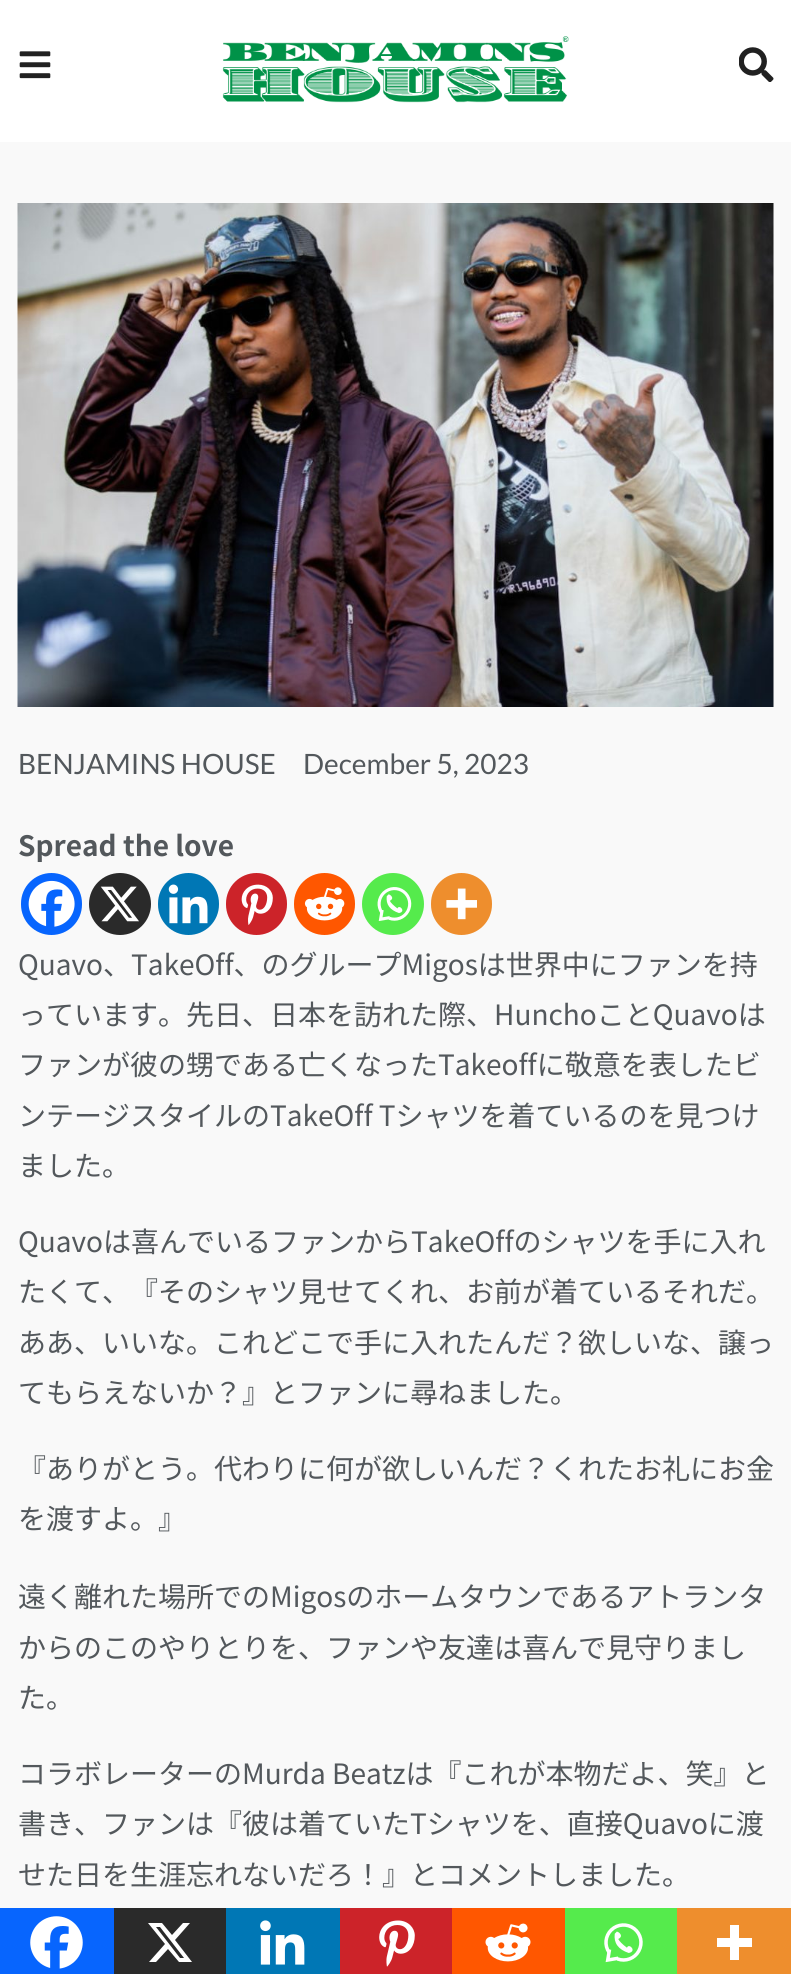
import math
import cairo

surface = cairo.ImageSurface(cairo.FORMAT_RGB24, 791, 1974)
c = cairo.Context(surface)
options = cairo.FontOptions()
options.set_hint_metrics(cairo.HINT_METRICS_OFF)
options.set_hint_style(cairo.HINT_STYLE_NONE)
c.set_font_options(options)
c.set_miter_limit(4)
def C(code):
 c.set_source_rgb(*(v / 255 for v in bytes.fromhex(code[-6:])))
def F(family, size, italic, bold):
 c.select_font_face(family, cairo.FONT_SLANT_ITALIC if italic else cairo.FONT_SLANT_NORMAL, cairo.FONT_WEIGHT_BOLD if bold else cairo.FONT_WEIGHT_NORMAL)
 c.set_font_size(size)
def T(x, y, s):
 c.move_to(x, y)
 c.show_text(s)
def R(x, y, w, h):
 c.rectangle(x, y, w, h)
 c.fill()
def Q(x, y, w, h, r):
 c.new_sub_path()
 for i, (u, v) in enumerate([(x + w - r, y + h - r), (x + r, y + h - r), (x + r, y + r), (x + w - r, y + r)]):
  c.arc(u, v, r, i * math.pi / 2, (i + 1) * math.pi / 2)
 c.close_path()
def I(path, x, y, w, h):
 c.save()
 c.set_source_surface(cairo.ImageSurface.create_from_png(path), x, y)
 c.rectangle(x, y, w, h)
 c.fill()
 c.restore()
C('ffffff')
c.paint()
I('1.png',19,51,32,28)
I('2.png',222,36,347,67)
I('3.png',739,47,35,35)
C('f9f9f9')
R(0,142,791,1766)
I('4.png',17,203,757,504)
F('Lato',28,0,0)
C('53585c')
T(18,774,'BENJAMINS HOUSE')
T(303,774,'December 5, 2023')
F('Noto Sans JP',28,0,1)
T(18,856,'Spread the love')
C('0765fe')
Q(21,873,61,62,30.5)
c.fill()
I('5.png',28,880,47,47)
C('2a2a2a')
c.arc(120,904,31,0,2 * math.pi)
c.fill()
I('6.png',100,886,39,36)
C('0077b5')
Q(158,873,61,62,30.5)
c.fill()
I('7.png',168,884,40,40)
C('cc2329')
Q(226,873,61,62,30.5)
c.fill()
I('8.png',241,884,32,41)
C('ff5700')
Q(294,873,61,62,30.5)
c.fill()
I('9.png',304,887,41,34)
C('55eb4c')
c.arc(393,904,31,0,2 * math.pi)
c.fill()
I('10.png',377,887,35,34)
C('ee8e2d')
Q(431,873,61,62,30.5)
c.fill()
I('11.png',446,888,31,32)
F('Noto Sans JP',28,0,0)
C('53585c')
T(18,975,'Quavo、TakeOff、のグループMigosは世界中にファンを持')
T(18,1025,'っています。先日、日本を訪れた際、HunchoことQuavoは')
T(18,1075,'ファンが彼の甥である亡くなったTakeoffに敬意を表したビ')
T(18,1126,'ンテージスタイルのTakeOff Tシャツを着ているのを見つけ')
T(18,1176,'ました。')
T(18,1252,'Quavoは喜んでいるファンからTakeOffのシャツを手に入れ')
T(18,1302,'たくて、『そのシャツ見せてくれ、お前が着ているそれだ。')
T(18,1353,'ああ、いいな。これどこで手に入れたんだ？欲しいな、譲っ')
T(18,1403,'てもらえないか？』とファンに尋ねました。')
T(18,1479,'『ありがとう。代わりに何が欲しいんだ？くれたお礼にお金')
T(18,1529,'を渡すよ。』')
T(18,1607,'遠く離れた場所でのMigosのホームタウンであるアトランタ')
T(18,1658,'からのこのやりとりを、ファンや友達は喜んで見守りまし')
T(18,1708,'た。')
T(18,1784,'コラボレーターのMurda Beatzは『これが本物だよ、笑』と')
T(18,1834,'書き、ファンは『彼は着ていたTシャツを、直接Quavoに渡')
T(18,1885,'せた日を生涯忘れないだろ！』とコメントしました。')
C('0765fe')
R(0,1908,114,66)
I('12.png',30,1916,53,53)
C('2a2a2a')
R(114,1908,112,66)
C('ffffff')
c.new_path()
c.move_to(183,1923)
c.line_to(190,1923)
c.line_to(175,1940)
c.line_to(192,1962)
c.line_to(179,1962)
c.line_to(168,1949)
c.line_to(156,1962)
c.line_to(149,1962)
c.line_to(165,1944)
c.line_to(148,1923)
c.line_to(162,1923)
c.line_to(172,1935)
c.close_path()
c.move_to(180,1958)
c.line_to(184,1958)
c.line_to(160,1927)
c.line_to(156,1927)
c.close_path()
c.fill()
C('0077b5')
R(226,1908,114,66)
I('13.png',260,1920,45,45)
C('cc2329')
R(340,1908,112,66)
I('14.png',379,1920,36,47)
C('ff5700')
R(452,1908,113,66)
I('15.png',485,1923,46,39)
C('55eb4c')
R(565,1908,112,66)
I('16.png',604,1923,39,40)
C('ee8e2d')
R(677,1908,114,66)
C('ffffff')
c.set_fill_rule(cairo.FILL_RULE_EVEN_ODD)
c.new_path()
c.move_to(739,1938)
c.line_to(739,1925)
c.line_to(730,1925)
c.line_to(730,1938)
c.line_to(717,1938)
c.line_to(717,1947)
c.line_to(730,1947)
c.line_to(730,1960)
c.line_to(739,1960)
c.line_to(739,1947)
c.line_to(752,1947)
c.line_to(752,1938)
c.close_path()
c.fill()
surface.write_to_png('o.png')
